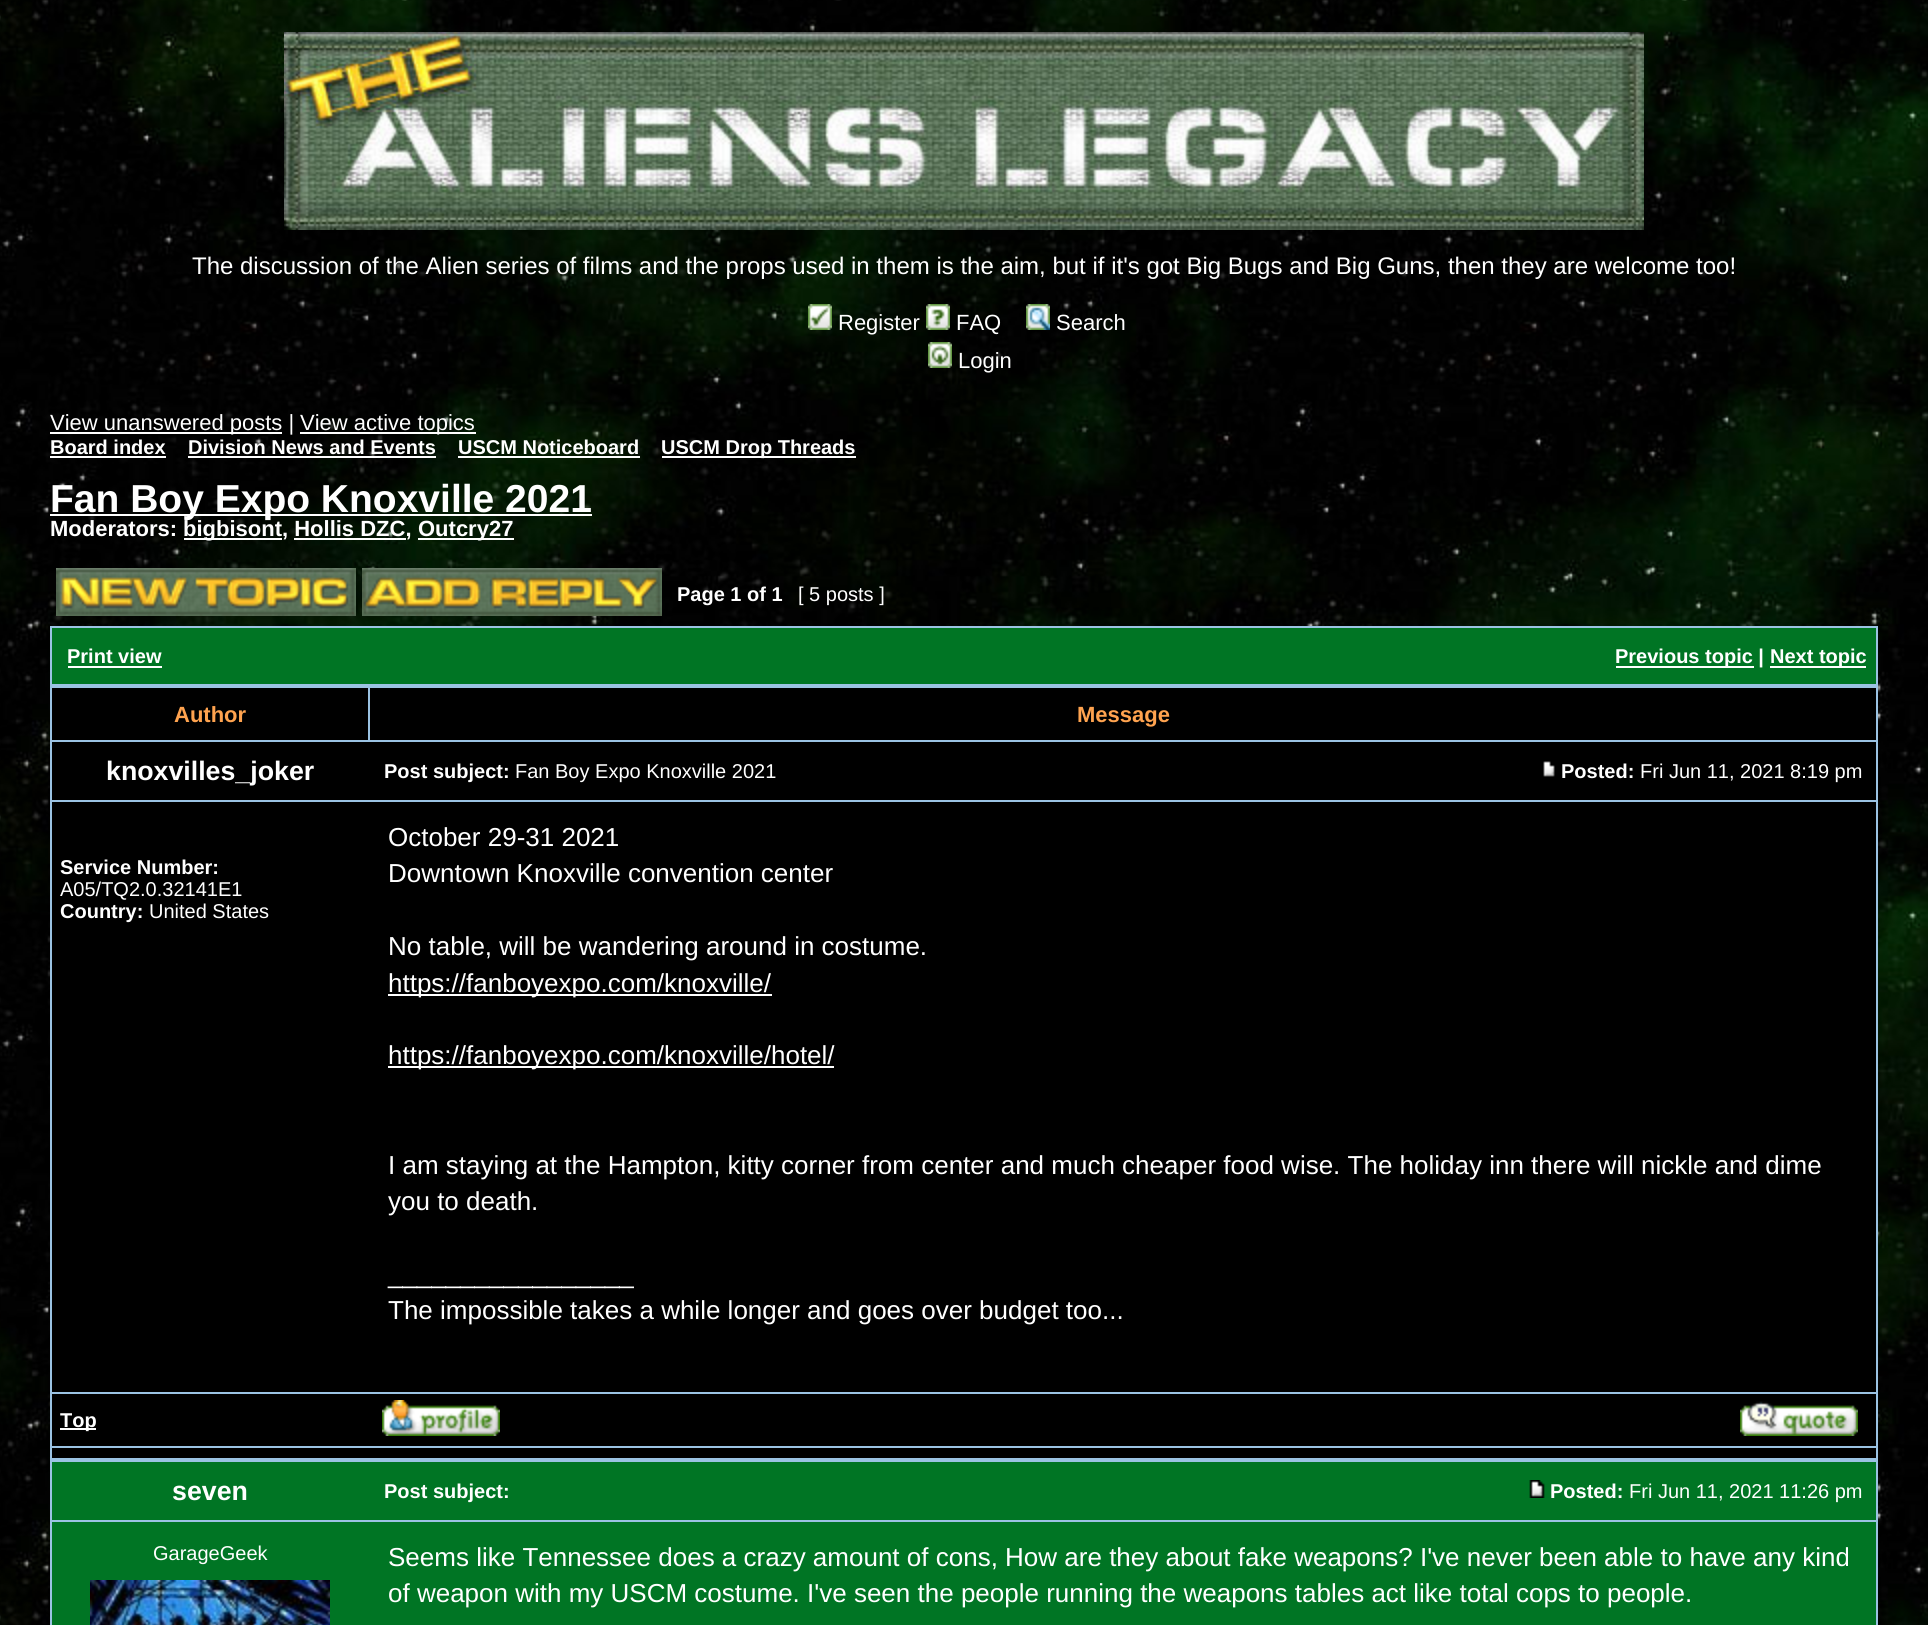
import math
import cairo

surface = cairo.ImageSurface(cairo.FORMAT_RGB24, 1928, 1625)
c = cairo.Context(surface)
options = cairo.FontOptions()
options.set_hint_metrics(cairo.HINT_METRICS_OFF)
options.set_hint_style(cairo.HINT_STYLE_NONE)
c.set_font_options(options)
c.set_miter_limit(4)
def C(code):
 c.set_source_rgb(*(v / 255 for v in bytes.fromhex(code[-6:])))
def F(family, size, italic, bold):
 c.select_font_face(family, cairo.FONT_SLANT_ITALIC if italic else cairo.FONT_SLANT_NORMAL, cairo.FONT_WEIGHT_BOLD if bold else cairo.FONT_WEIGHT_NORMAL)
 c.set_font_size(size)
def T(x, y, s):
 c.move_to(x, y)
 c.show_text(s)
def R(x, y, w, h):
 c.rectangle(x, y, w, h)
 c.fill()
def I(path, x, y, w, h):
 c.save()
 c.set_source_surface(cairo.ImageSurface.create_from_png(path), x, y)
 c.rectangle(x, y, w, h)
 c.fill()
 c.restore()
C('ffffff')
c.paint()
I('1.png',0,0,1928,1625)
I('2.png',284,32,1360,198)
F('Liberation Sans',24,0,0)
C('ffffff')
T(192,274,'The discussion of the Alien series of films and the props used in them is the aim, but if it\'s got Big Bugs and Big Guns, then they are welcome too!')
I('3.png',808,304,24,26)
F('Liberation Sans',22,0,0)
T(838,330,'Register')
I('4.png',926,304,24,26)
T(956,330,'FAQ')
I('5.png',1026,304,24,26)
T(1056,330,'Search')
I('6.png',928,342,24,26)
T(958,368,'Login')
R(50,432,232,2)
T(50,430,'View unanswered posts |')
R(300,432,176,2)
T(300,430,'View active topics')
F('Liberation Sans',20,0,1)
T(50,454,'Board index')
R(50,456,116,2)
T(188,454,'Division News and Events')
R(188,456,248,2)
T(458,454,'USCM Noticeboard')
R(458,456,182,2)
R(662,456,194,2)
T(661,454,'USCM Drop Threads')
R(50,514,542,2)
F('Liberation Sans',39,0,1)
T(50,512,'Fan Boy Expo Knoxville 2021')
F('Liberation Sans',22,0,1)
T(50,536,'Moderators:')
R(184,538,98,2)
T(183,536,'bigbisont, Hollis DZC,')
R(418,538,96,2)
T(418,536,'Outcry27')
R(294,538,112,2)
I('7.png',56,568,300,48)
I('8.png',362,568,300,48)
F('Liberation Sans',20,0,1)
T(677,601,'Page 1 of 1')
F('Liberation Sans',20,0,0)
T(798,601,'[ 5 posts ]')
C('9bc3e3')
R(50,626,1828,999)
C('007524')
R(52,628,1824,56)
F('Liberation Sans',20,0,1)
C('ffffff')
T(67,663,'Print view')
R(68,666,94,2)
R(1616,666,138,2)
T(1615,663,'Previous topic |')
R(1770,666,96,2)
T(1770,663,'Next topic')
C('000000')
R(52,688,316,52)
F('Liberation Sans',22,0,1)
C('ffa34f')
T(174,722,'Author')
C('000000')
R(370,688,1506,52)
C('ffa34f')
T(1077,722,'Message')
C('000000')
R(52,742,1824,58)
F('Liberation Sans',26.75,0,1)
C('ffffff')
T(106,780,'knoxvilles_joker')
F('Liberation Sans',20,0,1)
T(384,778,'Post subject:')
F('Liberation Sans',20,0,0)
T(515,778,'Fan Boy Expo Knoxville 2021')
I('9.png',1543,761,12,16)
F('Liberation Sans',20,0,1)
T(1561,778,'Posted:')
F('Liberation Sans',20,0,0)
T(1640,778,'Fri Jun 11, 2021 8:19 pm')
C('000000')
R(52,802,1824,590)
F('Liberation Sans',20,0,1)
C('ffffff')
T(60,874,'Service Number:')
F('Liberation Sans',20,0,0)
T(60,896,'A05/TQ2.0.32141E1')
F('Liberation Sans',20,0,1)
T(60,918,'Country:')
F('Liberation Sans',20,0,0)
T(149,918,'United States')
F('Liberation Sans',26,0,0)
T(388,846,'October 29-31 2021')
T(388,882,'Downtown Knoxville convention center')
T(388,955,'No table, will be wandering around in costume.')
R(388,994,384,2)
T(388,992,'https://fanboyexpo.com/knoxville/')
R(388,1066,446,2)
T(388,1064,'https://fanboyexpo.com/knoxville/hotel/')
T(388,1174,'I am staying at the Hampton, kitty corner from center and much cheaper food wise. The holiday inn there will nickle and dime')
T(388,1210,'you to death.')
T(388,1283,'_________________')
T(388,1319,'The impossible takes a while longer and goes over budget too...')
C('000000')
R(52,1394,1824,52)
C('ffffff')
R(60,1428,36,2)
F('Liberation Sans',20,0,1)
T(60,1427,'Top')
I('10.png',382,1400,118,36)
I('11.png',1740,1401,118,35)
C('000000')
R(52,1448,1824,10)
C('007524')
R(52,1462,1824,58)
F('Liberation Sans',26.75,0,1)
C('ffffff')
T(172,1500,'seven')
F('Liberation Sans',20,0,1)
T(384,1498,'Post subject:')
I('12.png',1529,1480,16,18)
T(1550,1498,'Posted:')
F('Liberation Sans',20,0,0)
T(1629,1498,'Fri Jun 11, 2021 11:26 pm')
C('007524')
R(52,1522,1824,103)
C('ffffff')
T(153,1560,'GarageGeek')
I('13.png',90,1580,240,45)
F('Liberation Sans',26,0,0)
T(388,1566,'Seems like Tennessee does a crazy amount of cons, How are they about fake weapons? I\'ve never been able to have any kind')
T(388,1602,'of weapon with my USCM costume. I\'ve seen the people running the weapons tables act like total cops to people.')
surface.write_to_png('o.png')
